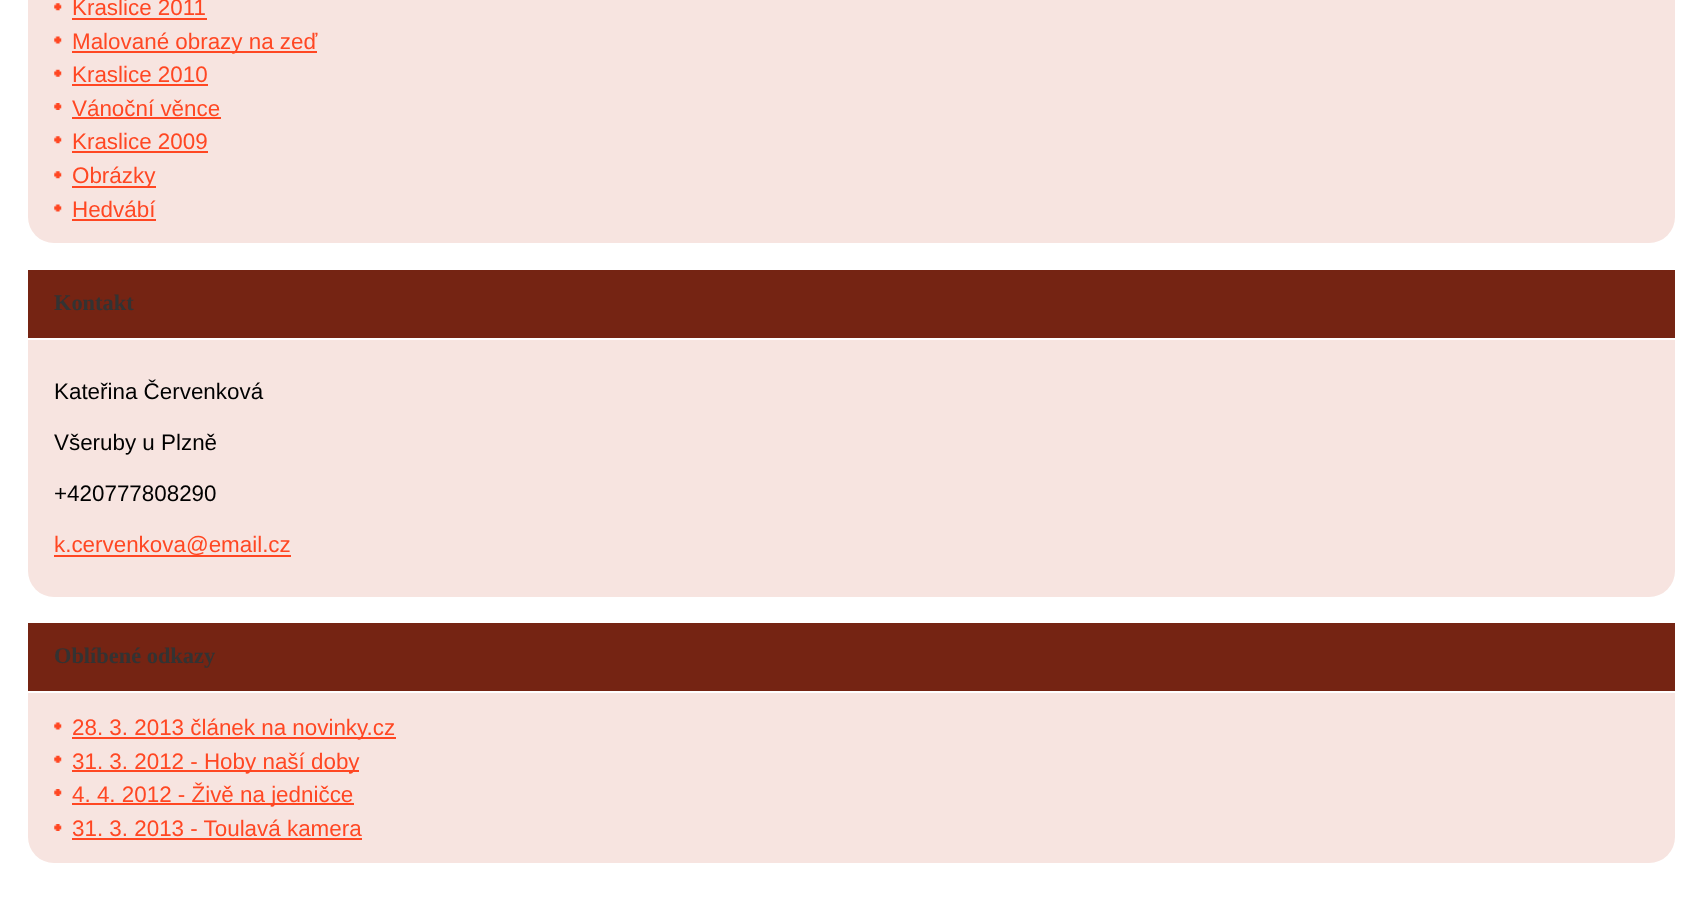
<svg xmlns="http://www.w3.org/2000/svg" width="1693" height="900">
	<rect width="100%" height="100%" fill="#FFFFFF" />
	<rect x="28" y="-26" width="1647" height="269" rx="26" fill="#F7E4E0" />
	<image x="54" y="3" width="8" height="8" href="assets/img1.png" />
	<text x="72" y="15" font-family="Liberation Sans" font-size="22.4" fill="#FF4723">Kraslice 2011</text>
	<rect x="72" y="18" width="135" height="2" fill="#FF4723" />
	<image x="54" y="36" width="8" height="8" href="assets/img2.png" />
	<rect x="72" y="51" width="245" height="2" fill="#FF4723" />
	<text x="72" y="49" font-family="Liberation Sans" font-size="22.4" fill="#FF4723">Malované obrazy na zeď</text>
	<image x="54" y="69" width="8" height="8" href="assets/img3.png" />
	<text x="72" y="82" font-family="Liberation Sans" font-size="22.4" fill="#FF4723">Kraslice 2010</text>
	<rect x="72" y="84" width="136" height="2" fill="#FF4723" />
	<image x="54" y="103" width="8" height="7" href="assets/img4.png" />
	<text x="72" y="116" font-family="Liberation Sans" font-size="22.4" fill="#FF4723">Vánoční věnce</text>
	<rect x="72" y="117" width="149" height="2" fill="#FF4723" />
	<image x="54" y="136" width="8" height="8" href="assets/img1.png" />
	<text x="72" y="149" font-family="Liberation Sans" font-size="22.4" fill="#FF4723">Kraslice 2009</text>
	<rect x="72" y="151" width="136" height="2" fill="#FF4723" />
	<image x="54" y="171" width="8" height="8" href="assets/img1.png" />
	<rect x="72" y="186" width="84" height="2" fill="#FF4723" />
	<text x="72" y="183" font-family="Liberation Sans" font-size="22.4" fill="#FF4723">Obrázky</text>
	<image x="54" y="204" width="8" height="8" href="assets/img2.png" />
	<text x="72" y="217" font-family="Liberation Sans" font-size="22.4" fill="#FF4723">Hedvábí</text>
	<rect x="72" y="219" width="84" height="2" fill="#FF4723" />
	<rect x="28" y="270" width="1647" height="327" rx="26" fill="#F7E4E0" />
	<rect x="28" y="270" width="1647" height="68" fill="#752413" />
	<rect x="28" y="338" width="1647" height="2" fill="#FFFFFF" />
	<text x="54" y="310" font-family="Liberation Serif" font-size="22.4" font-weight="700" fill="#333333">Kontakt</text>
	<g font-family="Liberation Sans" font-size="22.4" fill="#000000">
		<text x="54" y="399">Kateřina Červenková</text>
		<text x="54" y="450">Všeruby u Plzně</text>
		<text x="54" y="501">+420777808290</text>
	</g>
	<rect x="54" y="555" width="237" height="2" fill="#FF4723" />
	<text x="54" y="552" font-family="Liberation Sans" font-size="22.4" fill="#FF4723">k.cervenkova@email.cz</text>
	<rect x="28" y="623" width="1647" height="240" rx="26" fill="#F7E4E0" />
	<rect x="28" y="623" width="1647" height="68" fill="#752413" />
	<rect x="28" y="691" width="1647" height="2" fill="#FFFFFF" />
	<text x="54" y="663" font-family="Liberation Serif" font-size="22.4" font-weight="700" fill="#333333">Oblíbené odkazy</text>
	<image x="54" y="722" width="8" height="8" href="assets/img2.png" />
	<rect x="72" y="737" width="324" height="2" fill="#FF4723" />
	<text x="72" y="735" font-family="Liberation Sans" font-size="22.4" fill="#FF4723">28. 3. 2013 článek na novinky.cz</text>
	<image x="54" y="755" width="8" height="8" href="assets/img3.png" />
	<rect x="72" y="770" width="287" height="2" fill="#FF4723" />
	<text x="72" y="769" font-family="Liberation Sans" font-size="22.4" fill="#FF4723">31. 3. 2012 - Hoby naší doby</text>
	<image x="54" y="789" width="8" height="7" href="assets/img4.png" />
	<rect x="72" y="803" width="282" height="2" fill="#FF4723" />
	<text x="72" y="802" font-family="Liberation Sans" font-size="22.4" fill="#FF4723">4. 4. 2012 - Živě na jedničce</text>
	<image x="54" y="824" width="8" height="7" href="assets/img4.png" />
	<text x="72" y="836" font-family="Liberation Sans" font-size="22.4" fill="#FF4723">31. 3. 2013 - Toulavá kamera</text>
	<rect x="72" y="838" width="290" height="2" fill="#FF4723" />
</svg>
